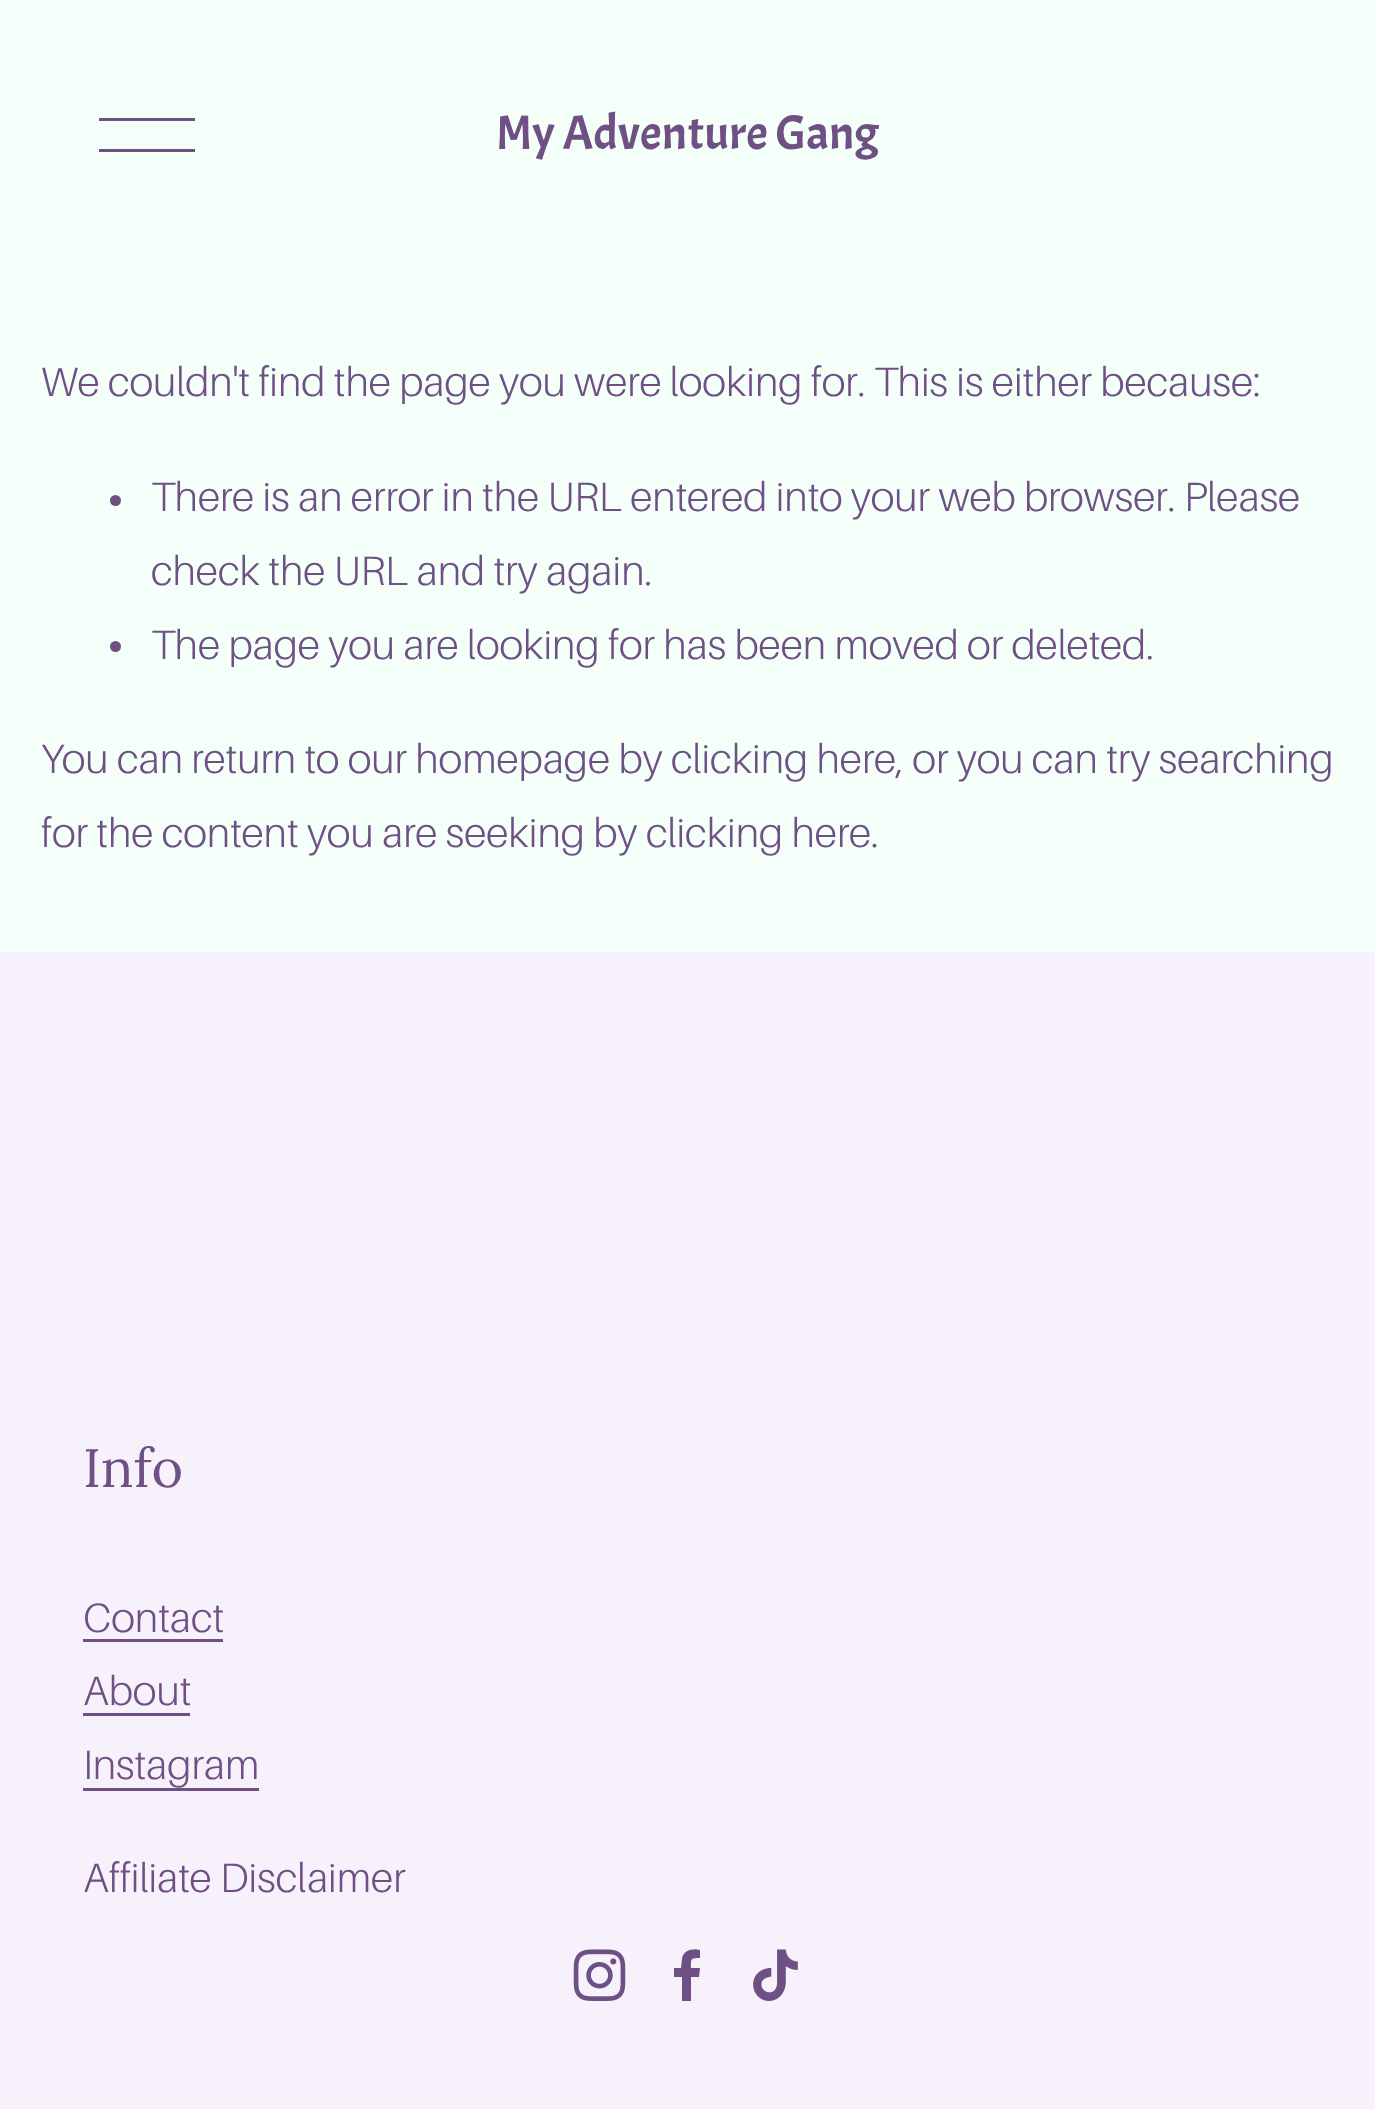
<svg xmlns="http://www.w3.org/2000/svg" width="1375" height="2109">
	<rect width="100%" height="100%" fill="#F5FFF9" />
	<rect x="99" y="118" width="96" height="3" fill="#6E5084" />
	<rect x="99" y="149" width="96" height="3" fill="#6E5084" />
	<text x="496" y="149" font-family="Acme" font-size="48.5" fill="#6E5084">My Adventure Gang</text>
	<text x="41" y="396" font-family="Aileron" font-size="41" font-weight="300" fill="#6E5084">We couldn't find the page you were looking for. This is either because:</text>
	<circle cx="115.5" cy="500.5" r="5.5" fill="#6E5084" />
	<g font-family="Aileron" font-size="41" font-weight="300" fill="#6E5084">
		<text x="151" y="511">There is an error in the URL entered into your web browser. Please</text>
		<text x="151" y="585">check the URL and try again.</text>
	</g>
	<circle cx="115.5" cy="646.5" r="5.5" fill="#6E5084" />
	<g font-family="Aileron" font-size="41" font-weight="300" fill="#6E5084">
		<text x="151" y="659">The page you are looking for has been moved or deleted.</text>
		<text x="41" y="773">You can return to our homepage by</text>
		<text x="671" y="773">clicking here, or you can try searching</text>
		<text x="41" y="847">for the content you are seeking by</text>
		<text x="646" y="847">clicking here.</text>
	</g>
	<rect x="0" y="952" width="1375" height="1157" fill="#F7F1FC" />
	<text x="83" y="1487" font-family="Lora" font-size="54" fill="#6E5084">Info</text>
	<text x="83" y="1632" font-family="Aileron" font-size="41" font-weight="300" fill="#6E5084">Contact</text>
	<rect x="83" y="1639" width="140" height="3" fill="#6E5084" />
	<text x="83" y="1705" font-family="Aileron" font-size="41" font-weight="300" fill="#6E5084">About</text>
	<rect x="83" y="1713" width="107" height="3" fill="#6E5084" />
	<text x="83" y="1779" font-family="Aileron" font-size="41" font-weight="300" fill="#6E5084">Instagram</text>
	<rect x="83" y="1788" width="176" height="3" fill="#6E5084" />
	<text x="83" y="1892" font-family="Aileron" font-size="41" font-weight="300" fill="#6E5084">Affiliate Disclaimer</text>
	<image x="573" y="1949" width="53" height="52" href="assets/img1.png" />
	<path d="M691 2001V1977H699L700 1968H691C691 1959 690 1958 700 1958V1950C693 1948 683 1950 682 1959L681 1968H674V1977H682V2001Z" fill="#6E5084" />
	<image x="753" y="1949" width="45" height="52" href="assets/img2.png" />
</svg>
